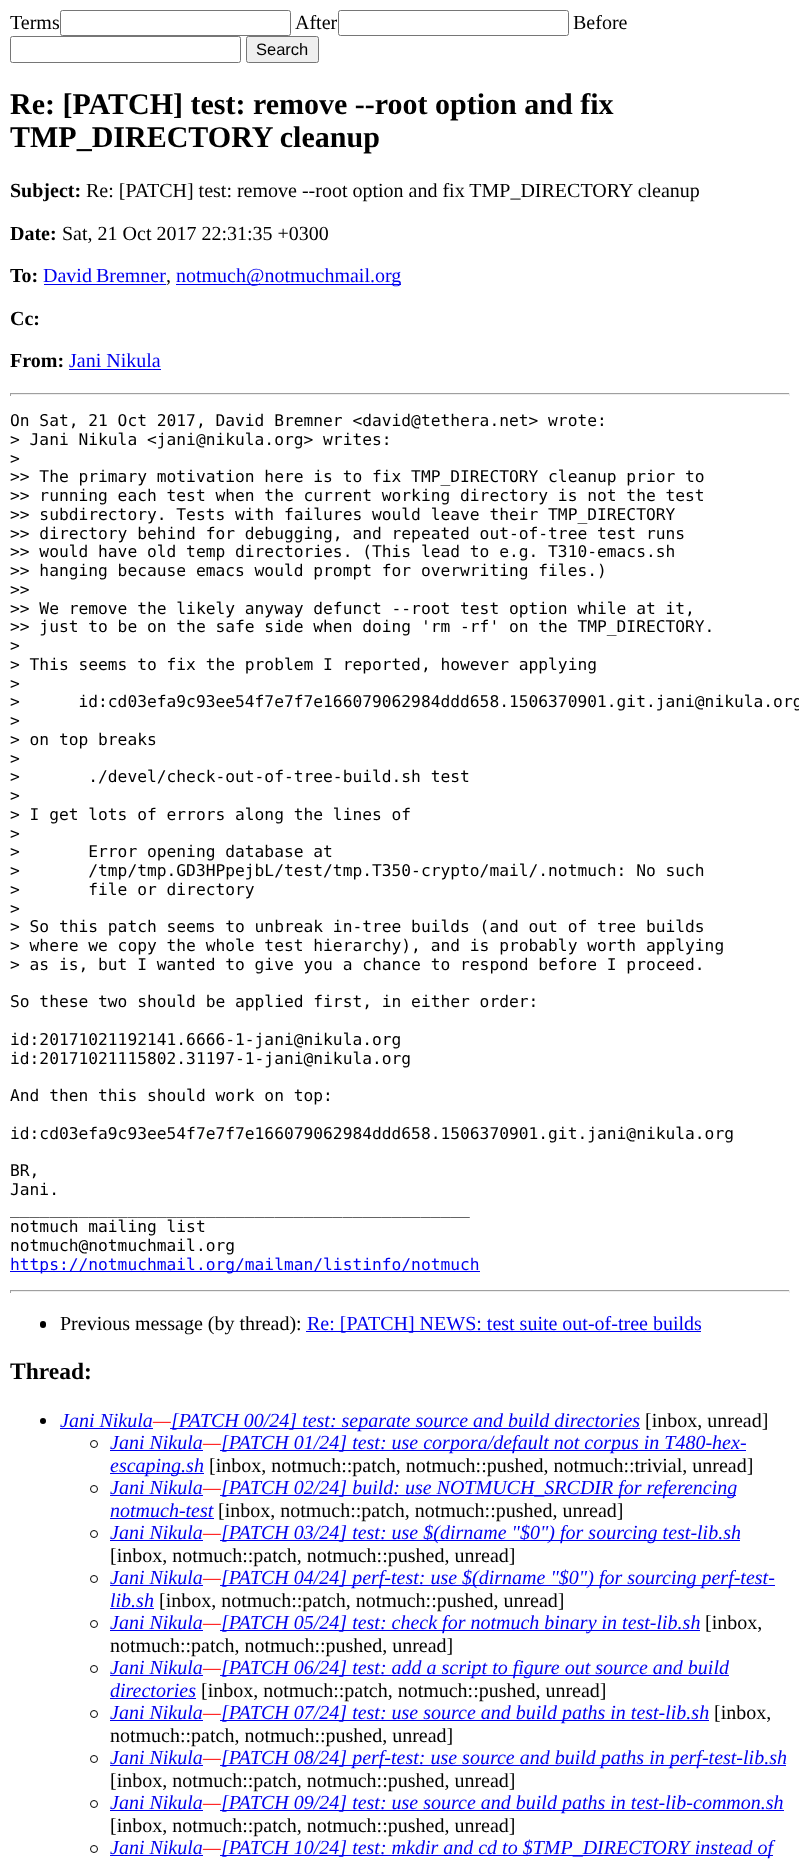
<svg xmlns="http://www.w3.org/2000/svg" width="799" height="1868">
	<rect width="100%" height="100%" fill="#FFFFFF" />
	<text x="10" y="29" font-family="Liberation Serif" font-size="20" fill="#000000">Terms</text>
	<rect x="60.5" y="10.5" width="230" height="25" rx="2" fill="none" stroke="#767676" />
	<text x="295" y="29" font-family="Liberation Serif" font-size="20" fill="#000000">After</text>
	<rect x="338.5" y="10.5" width="230" height="25" rx="2" fill="none" stroke="#767676" />
	<text x="573" y="29" font-family="Liberation Serif" font-size="20" fill="#000000">Before</text>
	<rect x="10.5" y="36.5" width="230" height="26" rx="2" fill="none" stroke="#767676" />
	<rect x="246.5" y="36.5" width="72" height="26" rx="2" fill="#EFEFEF" stroke="#767676" />
	<text x="256" y="55" font-family="Liberation Sans" font-size="16.5" fill="#000000">Search</text>
	<g font-family="Liberation Serif" font-size="30" font-weight="700" fill="#000000">
		<text x="10" y="114">Re: [PATCH] test: remove --root option and fix</text>
		<text x="10" y="147">TMP_DIRECTORY cleanup</text>
	</g>
	<text x="10" y="197" font-family="Liberation Serif" font-size="20" font-weight="700" fill="#000000">Subject:</text>
	<text x="86" y="197" font-family="Liberation Serif" font-size="20" fill="#000000">Re: [PATCH] test: remove --root option and fix TMP_DIRECTORY cleanup</text>
	<text x="10" y="240" font-family="Liberation Serif" font-size="20" font-weight="700" fill="#000000">Date:</text>
	<text x="62" y="240" font-family="Liberation Serif" font-size="20" fill="#000000">Sat, 21 Oct 2017 22:31:35 +0300</text>
	<text x="10" y="282" font-family="Liberation Serif" font-size="20" font-weight="700" fill="#000000">To:</text>
	<text x="43" y="282" word-spacing="-1" font-family="Liberation Serif" font-size="20" fill="#0000EE">David Bremner</text>
	<rect x="44" y="284" width="122" height="1" fill="#0000EE" />
	<text x="166" y="282" font-family="Liberation Serif" font-size="20" fill="#000000">,</text>
	<rect x="176" y="284" width="225" height="1" fill="#0000EE" />
	<text x="176" y="282" font-family="Liberation Serif" font-size="20" fill="#0000EE">notmuch@notmuchmail.org</text>
	<g font-family="Liberation Serif" font-size="20" font-weight="700" fill="#000000">
		<text x="10" y="325">Cc:</text>
		<text x="10" y="367">From:</text>
	</g>
	<text x="69" y="367" font-family="Liberation Serif" font-size="20" fill="#0000EE">Jani Nikula</text>
	<rect x="69" y="369" width="92" height="1" fill="#0000EE" />
	<rect x="10" y="393" width="780" height="1" fill="#9F9F9F" />
	<rect x="789" y="393" width="1" height="3" fill="#EEEEEE" />
	<rect x="10" y="394" width="780" height="1" fill="#EEEEEE" />
	<rect x="10" y="393" width="1" height="3" fill="#9F9F9F" />
	<g font-family="DejaVu Sans Mono" font-size="16.25" fill="#000000">
		<text x="10" y="426">On Sat, 21 Oct 2017, David Bremner &lt;david@tethera.net&gt; wrote:</text>
		<text x="10" y="445">&gt; Jani Nikula &lt;jani@nikula.org&gt; writes:</text>
		<text x="10" y="464">&gt;</text>
		<text x="10" y="482">&gt;&gt; The primary motivation here is to fix TMP_DIRECTORY cleanup prior to</text>
		<text x="10" y="501">&gt;&gt; running each test when the current working directory is not the test</text>
		<text x="10" y="520">&gt;&gt; subdirectory. Tests with failures would leave their TMP_DIRECTORY</text>
		<text x="10" y="539">&gt;&gt; directory behind for debugging, and repeated out-of-tree test runs</text>
		<text x="10" y="557">&gt;&gt; would have old temp directories. (This lead to e.g. T310-emacs.sh</text>
		<text x="10" y="576">&gt;&gt; hanging because emacs would prompt for overwriting files.)</text>
		<text x="10" y="595">&gt;&gt;</text>
		<text x="10" y="614">&gt;&gt; We remove the likely anyway defunct --root test option while at it,</text>
		<text x="10" y="632">&gt;&gt; just to be on the safe side when doing 'rm -rf' on the TMP_DIRECTORY.</text>
		<text x="10" y="651">&gt;</text>
		<text x="10" y="670">&gt; This seems to fix the problem I reported, however applying</text>
		<text x="10" y="689">&gt;</text>
		<text x="10" y="707" xml:space="preserve">&gt;      id:cd03efa9c93ee54f7e7f7e166079062984ddd658.1506370901.git.jani@nikula.org</text>
		<text x="10" y="726">&gt;</text>
		<text x="10" y="745">&gt; on top breaks</text>
		<text x="10" y="764">&gt;</text>
		<text x="10" y="782" xml:space="preserve">&gt;       ./devel/check-out-of-tree-build.sh test</text>
		<text x="10" y="801">&gt;</text>
		<text x="10" y="820">&gt; I get lots of errors along the lines of</text>
		<text x="10" y="839">&gt;</text>
		<text x="10" y="857" xml:space="preserve">&gt;       Error opening database at</text>
		<text x="10" y="876" xml:space="preserve">&gt;       /tmp/tmp.GD3HPpejbL/test/tmp.T350-crypto/mail/.notmuch: No such</text>
		<text x="10" y="895" xml:space="preserve">&gt;       file or directory</text>
		<text x="10" y="914">&gt;</text>
		<text x="10" y="932">&gt; So this patch seems to unbreak in-tree builds (and out of tree builds</text>
		<text x="10" y="951">&gt; where we copy the whole test hierarchy), and is probably worth applying</text>
		<text x="10" y="970">&gt; as is, but I wanted to give you a chance to respond before I proceed.</text>
		<text x="10" y="1007">So these two should be applied first, in either order:</text>
		<text x="10" y="1045">id:20171021192141.6666-1-jani@nikula.org</text>
		<text x="10" y="1064">id:20171021115802.31197-1-jani@nikula.org</text>
		<text x="10" y="1101">And then this should work on top:</text>
		<text x="10" y="1139">id:cd03efa9c93ee54f7e7f7e166079062984ddd658.1506370901.git.jani@nikula.org</text>
		<text x="10" y="1176">BR,</text>
		<text x="10" y="1195">Jani.</text>
		<text x="10" y="1214">_______________________________________________</text>
		<text x="10" y="1232">notmuch mailing list</text>
		<text x="10" y="1251">notmuch@notmuchmail.org</text>
	</g>
	<rect x="10" y="1271" width="470" height="1" fill="#0000EE" />
	<text x="10" y="1270" font-family="DejaVu Sans Mono" font-size="16.25" fill="#0000EE">https://notmuchmail.org/mailman/listinfo/notmuch</text>
	<rect x="10" y="1290" width="780" height="1" fill="#9F9F9F" />
	<rect x="789" y="1290" width="1" height="3" fill="#EEEEEE" />
	<rect x="10" y="1291" width="780" height="1" fill="#EEEEEE" />
	<rect x="10" y="1290" width="1" height="3" fill="#9F9F9F" />
	<rect x="40" y="1321" width="6" height="7" rx="3" fill="#000000" />
	<text x="60" y="1330" font-family="Liberation Serif" font-size="20" fill="#000000">Previous message (by thread):</text>
	<rect x="306" y="1331" width="395" height="1" fill="#0000EE" />
	<text x="307" y="1330" font-family="Liberation Serif" font-size="20" fill="#0000EE">Re: [PATCH] NEWS: test suite out-of-tree builds</text>
	<text x="10" y="1379" font-family="Liberation Serif" font-size="23.5" font-weight="700" fill="#000000">Thread:</text>
	<circle cx="43" cy="1421" r="3" fill="#000000" />
	<text x="60" y="1427" font-family="Liberation Serif" font-size="20" font-style="italic" fill="#0000EE">Jani Nikula</text>
	<text x="153" y="1427" font-family="Liberation Serif" font-size="20" font-style="italic" fill="#FF0000">—</text>
	<rect x="60" y="1428" width="93" height="1" fill="#0000EE" />
	<rect x="170" y="1428" width="470" height="1" fill="#0000EE" />
	<text x="171" y="1427" font-family="Liberation Serif" font-size="20" font-style="italic" fill="#0000EE">[PATCH 00/24] test: separate source and build directories</text>
	<text x="645" y="1427" font-family="Liberation Serif" font-size="20" fill="#000000">[inbox, unread]</text>
	<circle cx="94" cy="1444" r="3.5" fill="none" stroke="#000000" />
	<text x="110" y="1449" font-family="Liberation Serif" font-size="20" font-style="italic" fill="#0000EE">Jani Nikula</text>
	<text x="203" y="1449" font-family="Liberation Serif" font-size="20" font-style="italic" fill="#FF0000">—</text>
	<rect x="110" y="1450" width="93" height="1" fill="#0000EE" />
	<rect x="220" y="1450" width="526" height="1" fill="#0000EE" />
	<text x="221" y="1449" font-family="Liberation Serif" font-size="20" font-style="italic" fill="#0000EE">[PATCH 01/24] test: use corpora/default not corpus in T480-hex-</text>
	<rect x="110" y="1473" width="94" height="1" fill="#0000EE" />
	<text x="110" y="1472" font-family="Liberation Serif" font-size="20" font-style="italic" fill="#0000EE">escaping.sh</text>
	<text x="209" y="1472" font-family="Liberation Serif" font-size="20" fill="#000000">[inbox, notmuch::patch, notmuch::pushed, notmuch::trivial, unread]</text>
	<circle cx="94" cy="1489" r="3.5" fill="none" stroke="#000000" />
	<text x="110" y="1494" font-family="Liberation Serif" font-size="20" font-style="italic" fill="#0000EE">Jani Nikula</text>
	<text x="203" y="1494" font-family="Liberation Serif" font-size="20" font-style="italic" fill="#FF0000">—</text>
	<rect x="110" y="1495" width="93" height="1" fill="#0000EE" />
	<rect x="220" y="1495" width="516" height="1" fill="#0000EE" />
	<g font-family="Liberation Serif" font-size="20" font-style="italic" fill="#0000EE">
		<text x="221" y="1494">[PATCH 02/24] build: use NOTMUCH_SRCDIR for referencing</text>
		<text x="110" y="1517">notmuch-test</text>
	</g>
	<rect x="110" y="1518" width="104" height="1" fill="#0000EE" />
	<text x="218" y="1517" font-family="Liberation Serif" font-size="20" fill="#000000">[inbox, notmuch::patch, notmuch::pushed, unread]</text>
	<circle cx="94" cy="1534" r="3.5" fill="none" stroke="#000000" />
	<text x="110" y="1539" font-family="Liberation Serif" font-size="20" font-style="italic" fill="#0000EE">Jani Nikula</text>
	<text x="203" y="1539" font-family="Liberation Serif" font-size="20" font-style="italic" fill="#FF0000">—</text>
	<rect x="110" y="1540" width="93" height="1" fill="#0000EE" />
	<rect x="220" y="1540" width="520" height="1" fill="#0000EE" />
	<text x="221" y="1539" font-family="Liberation Serif" font-size="20" font-style="italic" fill="#0000EE">[PATCH 03/24] test: use $(dirname "$0") for sourcing test-lib.sh</text>
	<text x="110" y="1562" font-family="Liberation Serif" font-size="20" fill="#000000">[inbox, notmuch::patch, notmuch::pushed, unread]</text>
	<circle cx="94" cy="1579" r="3.5" fill="none" stroke="#000000" />
	<text x="110" y="1584" font-family="Liberation Serif" font-size="20" font-style="italic" fill="#0000EE">Jani Nikula</text>
	<text x="203" y="1584" font-family="Liberation Serif" font-size="20" font-style="italic" fill="#FF0000">—</text>
	<rect x="110" y="1585" width="93" height="1" fill="#0000EE" />
	<rect x="220" y="1585" width="555" height="1" fill="#0000EE" />
	<g font-family="Liberation Serif" font-size="20" font-style="italic" fill="#0000EE">
		<text x="221" y="1584">[PATCH 04/24] perf-test: use $(dirname "$0") for sourcing perf-test-</text>
		<text x="110" y="1607">lib.sh</text>
	</g>
	<rect x="110" y="1608" width="44" height="1" fill="#0000EE" />
	<text x="159" y="1607" font-family="Liberation Serif" font-size="20" fill="#000000">[inbox, notmuch::patch, notmuch::pushed, unread]</text>
	<circle cx="94" cy="1624" r="3.5" fill="none" stroke="#000000" />
	<text x="110" y="1629" font-family="Liberation Serif" font-size="20" font-style="italic" fill="#0000EE">Jani Nikula</text>
	<text x="203" y="1629" font-family="Liberation Serif" font-size="20" font-style="italic" fill="#FF0000">—</text>
	<rect x="110" y="1630" width="93" height="1" fill="#0000EE" />
	<rect x="220" y="1630" width="480" height="1" fill="#0000EE" />
	<text x="221" y="1629" font-family="Liberation Serif" font-size="20" font-style="italic" fill="#0000EE">[PATCH 05/24] test: check for notmuch binary in test-lib.sh</text>
	<g font-family="Liberation Serif" font-size="20" fill="#000000">
		<text x="705" y="1629">[inbox,</text>
		<text x="110" y="1652">notmuch::patch, notmuch::pushed, unread]</text>
	</g>
	<circle cx="94" cy="1669" r="3.5" fill="none" stroke="#000000" />
	<text x="110" y="1674" font-family="Liberation Serif" font-size="20" font-style="italic" fill="#0000EE">Jani Nikula</text>
	<text x="203" y="1674" font-family="Liberation Serif" font-size="20" font-style="italic" fill="#FF0000">—</text>
	<rect x="110" y="1675" width="93" height="1" fill="#0000EE" />
	<rect x="220" y="1675" width="509" height="1" fill="#0000EE" />
	<g font-family="Liberation Serif" font-size="20" font-style="italic" fill="#0000EE">
		<text x="221" y="1674">[PATCH 06/24] test: add a script to figure out source and build</text>
		<text x="110" y="1697">directories</text>
	</g>
	<rect x="110" y="1698" width="86" height="1" fill="#0000EE" />
	<text x="201" y="1697" font-family="Liberation Serif" font-size="20" fill="#000000">[inbox, notmuch::patch, notmuch::pushed, unread]</text>
	<circle cx="94" cy="1714" r="3.5" fill="none" stroke="#000000" />
	<text x="110" y="1719" font-family="Liberation Serif" font-size="20" font-style="italic" fill="#0000EE">Jani Nikula</text>
	<text x="203" y="1719" font-family="Liberation Serif" font-size="20" font-style="italic" fill="#FF0000">—</text>
	<rect x="110" y="1720" width="93" height="1" fill="#0000EE" />
	<rect x="220" y="1720" width="489" height="1" fill="#0000EE" />
	<text x="221" y="1719" font-family="Liberation Serif" font-size="20" font-style="italic" fill="#0000EE">[PATCH 07/24] test: use source and build paths in test-lib.sh</text>
	<g font-family="Liberation Serif" font-size="20" fill="#000000">
		<text x="714" y="1719">[inbox,</text>
		<text x="110" y="1742">notmuch::patch, notmuch::pushed, unread]</text>
	</g>
	<circle cx="94" cy="1759" r="3.5" fill="none" stroke="#000000" />
	<text x="110" y="1764" font-family="Liberation Serif" font-size="20" font-style="italic" fill="#0000EE">Jani Nikula</text>
	<text x="203" y="1764" font-family="Liberation Serif" font-size="20" font-style="italic" fill="#FF0000">—</text>
	<rect x="110" y="1765" width="93" height="1" fill="#0000EE" />
	<rect x="220" y="1765" width="566" height="1" fill="#0000EE" />
	<text x="221" y="1764" font-family="Liberation Serif" font-size="20" font-style="italic" fill="#0000EE">[PATCH 08/24] perf-test: use source and build paths in perf-test-lib.sh</text>
	<text x="110" y="1787" font-family="Liberation Serif" font-size="20" fill="#000000">[inbox, notmuch::patch, notmuch::pushed, unread]</text>
	<circle cx="94" cy="1804" r="3.5" fill="none" stroke="#000000" />
	<text x="110" y="1809" font-family="Liberation Serif" font-size="20" font-style="italic" fill="#0000EE">Jani Nikula</text>
	<text x="203" y="1809" font-family="Liberation Serif" font-size="20" font-style="italic" fill="#FF0000">—</text>
	<rect x="110" y="1810" width="93" height="1" fill="#0000EE" />
	<rect x="220" y="1810" width="564" height="1" fill="#0000EE" />
	<text x="221" y="1809" font-family="Liberation Serif" font-size="20" font-style="italic" fill="#0000EE">[PATCH 09/24] test: use source and build paths in test-lib-common.sh</text>
	<text x="110" y="1832" font-family="Liberation Serif" font-size="20" fill="#000000">[inbox, notmuch::patch, notmuch::pushed, unread]</text>
	<circle cx="94" cy="1849" r="3.5" fill="none" stroke="#000000" />
	<text x="110" y="1854" font-family="Liberation Serif" font-size="20" font-style="italic" fill="#0000EE">Jani Nikula</text>
	<text x="203" y="1854" font-family="Liberation Serif" font-size="20" font-style="italic" fill="#FF0000">—</text>
	<rect x="110" y="1855" width="93" height="1" fill="#0000EE" />
	<rect x="220" y="1855" width="553" height="1" fill="#0000EE" />
	<text x="221" y="1854" font-family="Liberation Serif" font-size="20" font-style="italic" fill="#0000EE">[PATCH 10/24] test: mkdir and cd to $TMP_DIRECTORY instead of</text>
</svg>
